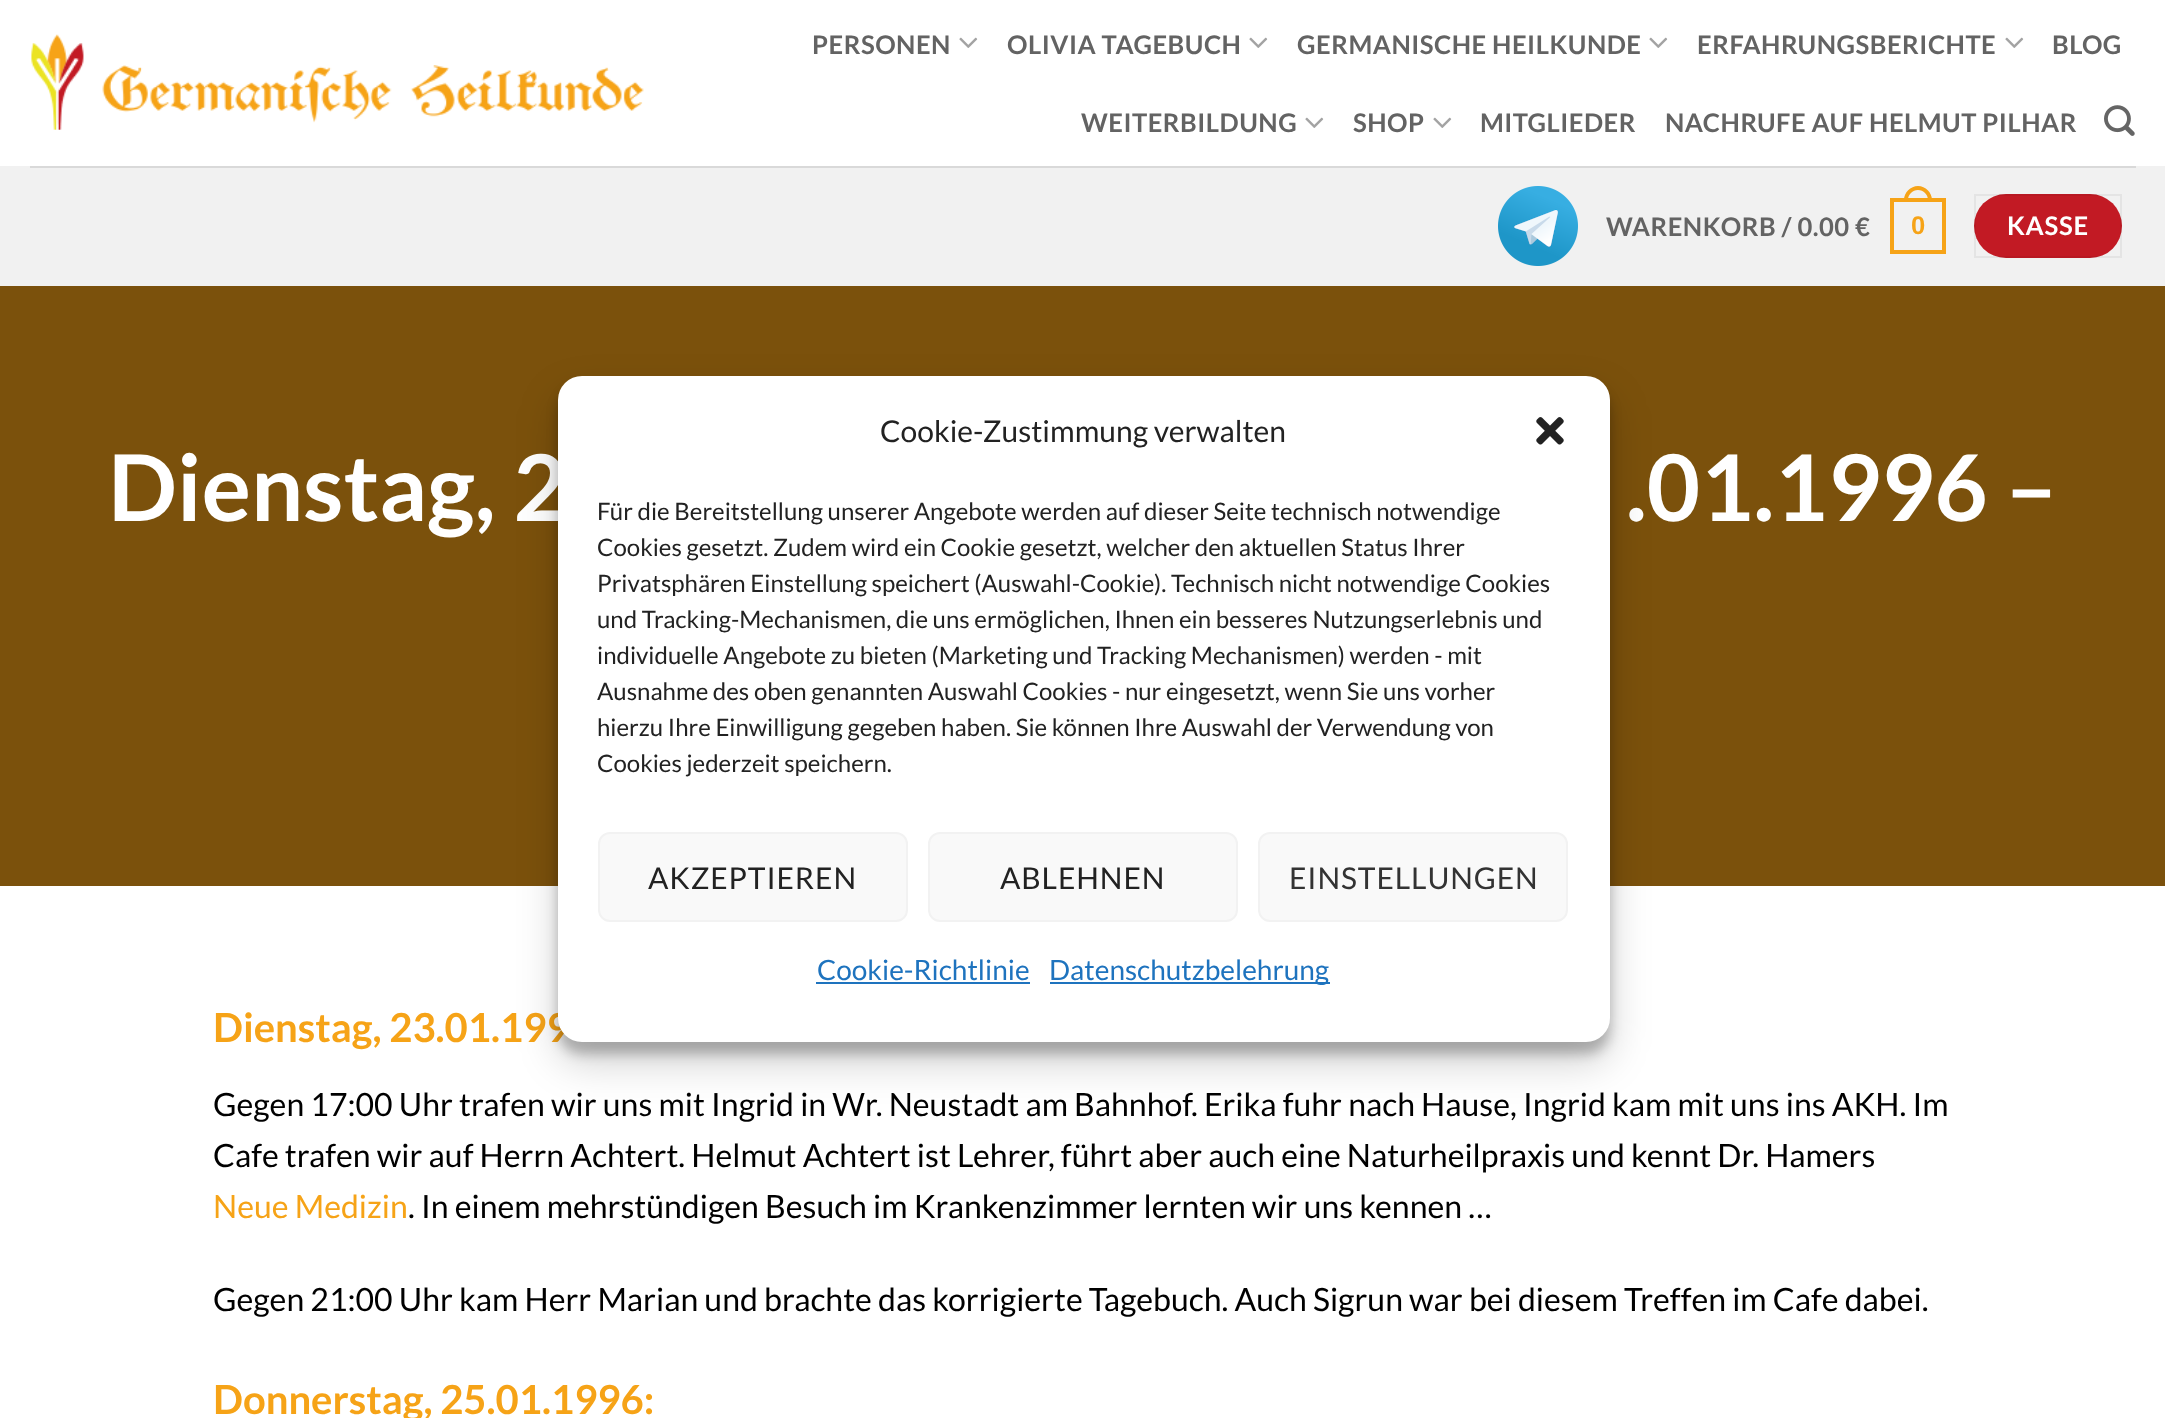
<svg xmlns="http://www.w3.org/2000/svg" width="2165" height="1418">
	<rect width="100%" height="100%" fill="#FFFFFF" />
	<image x="31" y="34" width="613" height="96" href="assets/img1.png" />
	<text x="812" y="54" font-family="Lato" font-size="25.6" font-weight="700" letter-spacing="0.5" fill="#636363">PERSONEN</text>
	<image x="959" y="37" width="19" height="11" href="assets/img2.png" />
	<text x="1007" y="54" font-family="Lato" font-size="25.6" font-weight="700" letter-spacing="0.5" fill="#636363">OLIVIA TAGEBUCH</text>
	<image x="1249" y="37" width="19" height="11" href="assets/img2.png" />
	<text x="1297" y="54" font-family="Lato" font-size="25.6" font-weight="700" letter-spacing="0.5" fill="#636363">GERMANISCHE HEILKUNDE</text>
	<image x="1649" y="37" width="19" height="11" href="assets/img2.png" />
	<text x="1697" y="54" font-family="Lato" font-size="25.6" font-weight="700" letter-spacing="0.5" fill="#636363">ERFAHRUNGSBERICHTE</text>
	<image x="2005" y="37" width="19" height="11" href="assets/img2.png" />
	<g font-family="Lato" font-size="25.6" font-weight="700" letter-spacing="0.5" fill="#636363">
		<text x="2052" y="54">BLOG</text>
		<text x="1081" y="132">WEITERBILDUNG</text>
	</g>
	<image x="1305" y="117" width="19" height="11" href="assets/img2.png" />
	<text x="1353" y="132" font-family="Lato" font-size="25.6" font-weight="700" letter-spacing="0.5" fill="#636363">SHOP</text>
	<image x="1433" y="117" width="19" height="11" href="assets/img2.png" />
	<g font-family="Lato" font-size="25.6" font-weight="700" letter-spacing="0.5" fill="#636363">
		<text x="1480" y="132">MITGLIEDER</text>
		<text x="1665" y="132">NACHRUFE AUF HELMUT PILHAR</text>
	</g>
	<image x="2104" y="105" width="31" height="31" href="assets/img3.png" />
	<rect x="0" y="166" width="2165" height="120" fill="#F1F1F1" />
	<rect x="30" y="166" width="2106" height="2" fill="#D9D9D9" />
	<image x="1498" y="186" width="80" height="80" href="assets/img4.png" />
	<text x="1606" y="236" font-family="Lato" font-size="25.6" font-weight="700" letter-spacing="0.5" fill="#636363">WARENKORB / 0.00 €</text>
	<rect x="1892" y="200" width="52" height="52" fill="none" stroke="#F6A317" stroke-width="4" />
	<path d="M1918 186C1925.5 186 1932 192.5 1932 200V202H1904V200C1904 192.5 1910.5 186 1918 186ZM1918 190C1923.5 190 1928 194.5 1928 200V202H1908V200C1908 194.5 1912.5 190 1918 190Z" fill="#F6A317" fill-rule="evenodd" />
	<text x="1911" y="234" font-family="Liberation Sans" font-size="25.6" font-weight="700" letter-spacing="0.5" fill="#F6A317">0</text>
	<rect x="1974" y="194" width="148" height="64" rx="32" fill="#C21A24" />
	<rect x="1975" y="195" width="146" height="62" fill="none" stroke="#000000" stroke-opacity="0.05" stroke-width="2" />
	<text x="2007" y="235" font-family="Lato" font-size="25.6" font-weight="700" letter-spacing="0.75" fill="#FFFFFF">KASSE</text>
	<rect x="0" y="286" width="2165" height="600" fill="#7B510C" />
	<g font-family="Lato" font-size="92" font-weight="700" fill="#FFFFFF">
		<text x="108" y="521">Dienstag, 2</text>
		<text x="1626" y="521">.01.1996 –</text>
	</g>
	<text x="213" y="1042" font-family="Lato" font-size="40" font-weight="700" fill="#F6A317">Dienstag, 23.01.199</text>
	<g font-family="Lato" font-size="32" fill="#000000">
		<text x="213" y="1116">Gegen 17:00 Uhr trafen wir uns mit Ingrid in Wr. Neustadt am Bahnhof. Erika fuhr nach Hause, Ingrid kam mit uns ins AKH. Im</text>
		<text x="213" y="1167">Cafe trafen wir auf Herrn Achtert. Helmut Achtert ist Lehrer, führt aber auch eine Naturheilpraxis und kennt Dr. Hamers</text>
	</g>
	<text x="213" y="1218" font-family="Lato" font-size="32" fill="#F6A317">Neue Medizin</text>
	<g font-family="Lato" font-size="32" fill="#000000">
		<text x="408" y="1218">. In einem mehrstündigen Besuch im Krankenzimmer lernten wir uns kennen …</text>
		<text x="213" y="1311">Gegen 21:00 Uhr kam Herr Marian und brachte das korrigierte Tagebuch. Auch Sigrun war bei diesem Treffen im Cafe dabei.</text>
	</g>
	<text x="213" y="1414" font-family="Lato" font-size="40" font-weight="700" fill="#F6A317">Donnerstag, 25.01.1996:</text>
	<rect x="558" y="388" width="1052" height="666" rx="24" fill="#000000" fill-opacity="0.23" filter="blur(6px)" />
	<rect x="558" y="396" width="1052" height="666" rx="24" fill="#000000" fill-opacity="0.19" filter="blur(20px)" />
	<rect x="558" y="376" width="1052" height="666" rx="24" fill="#FFFFFF" />
	<text x="880" y="442" font-family="Lato" font-size="30" fill="#222222">Cookie-Zustimmung verwalten</text>
	<image x="1536" y="417" width="28" height="28" href="assets/img5.png" />
	<g font-family="Lato" font-size="24" fill="#222222">
		<text x="597" y="520">Für die Bereitstellung unserer Angebote werden auf dieser Seite technisch notwendige</text>
		<text x="597" y="556">Cookies gesetzt. Zudem wird ein Cookie gesetzt, welcher den aktuellen Status Ihrer</text>
		<text x="597" y="592">Privatsphären Einstellung speichert (Auswahl-Cookie). Technisch nicht notwendige Cookies</text>
		<text x="597" y="628">und Tracking-Mechanismen, die uns ermöglichen, Ihnen ein besseres Nutzungserlebnis und</text>
		<text x="597" y="664">individuelle Angebote zu bieten (Marketing und Tracking Mechanismen) werden - mit</text>
		<text x="597" y="700">Ausnahme des oben genannten Auswahl Cookies - nur eingesetzt, wenn Sie uns vorher</text>
		<text x="597" y="736">hierzu Ihre Einwilligung gegeben haben. Sie können Ihre Auswahl der Verwendung von</text>
		<text x="597" y="772">Cookies jederzeit speichern.</text>
	</g>
	<rect x="599" y="833" width="308" height="88" rx="11" fill="#F9F9F9" stroke="#F2F2F2" stroke-width="2" />
	<text x="648" y="889" font-family="Lato" font-size="30" letter-spacing="0.9" fill="#222222">AKZEPTIEREN</text>
	<rect x="929" y="833" width="308" height="88" rx="11" fill="#F9F9F9" stroke="#F2F2F2" stroke-width="2" />
	<text x="1000" y="889" font-family="Lato" font-size="30" letter-spacing="0.9" fill="#222222">ABLEHNEN</text>
	<rect x="1259" y="833" width="308" height="88" rx="11" fill="#F9F9F9" stroke="#F2F2F2" stroke-width="2" />
	<text x="1289" y="889" font-family="Lato" font-size="30" letter-spacing="0.9" fill="#333333">EINSTELLUNGEN</text>
	<text x="817" y="980" font-family="Lato" font-size="28" fill="#1E73BE">Cookie-Richtlinie</text>
	<rect x="816" y="982" width="214" height="2" fill="#1E73BE" />
	<rect x="1050" y="982" width="280" height="2" fill="#1E73BE" />
	<text x="1049" y="980" font-family="Lato" font-size="28" fill="#1E73BE">Datenschutzbelehrung</text>
</svg>
